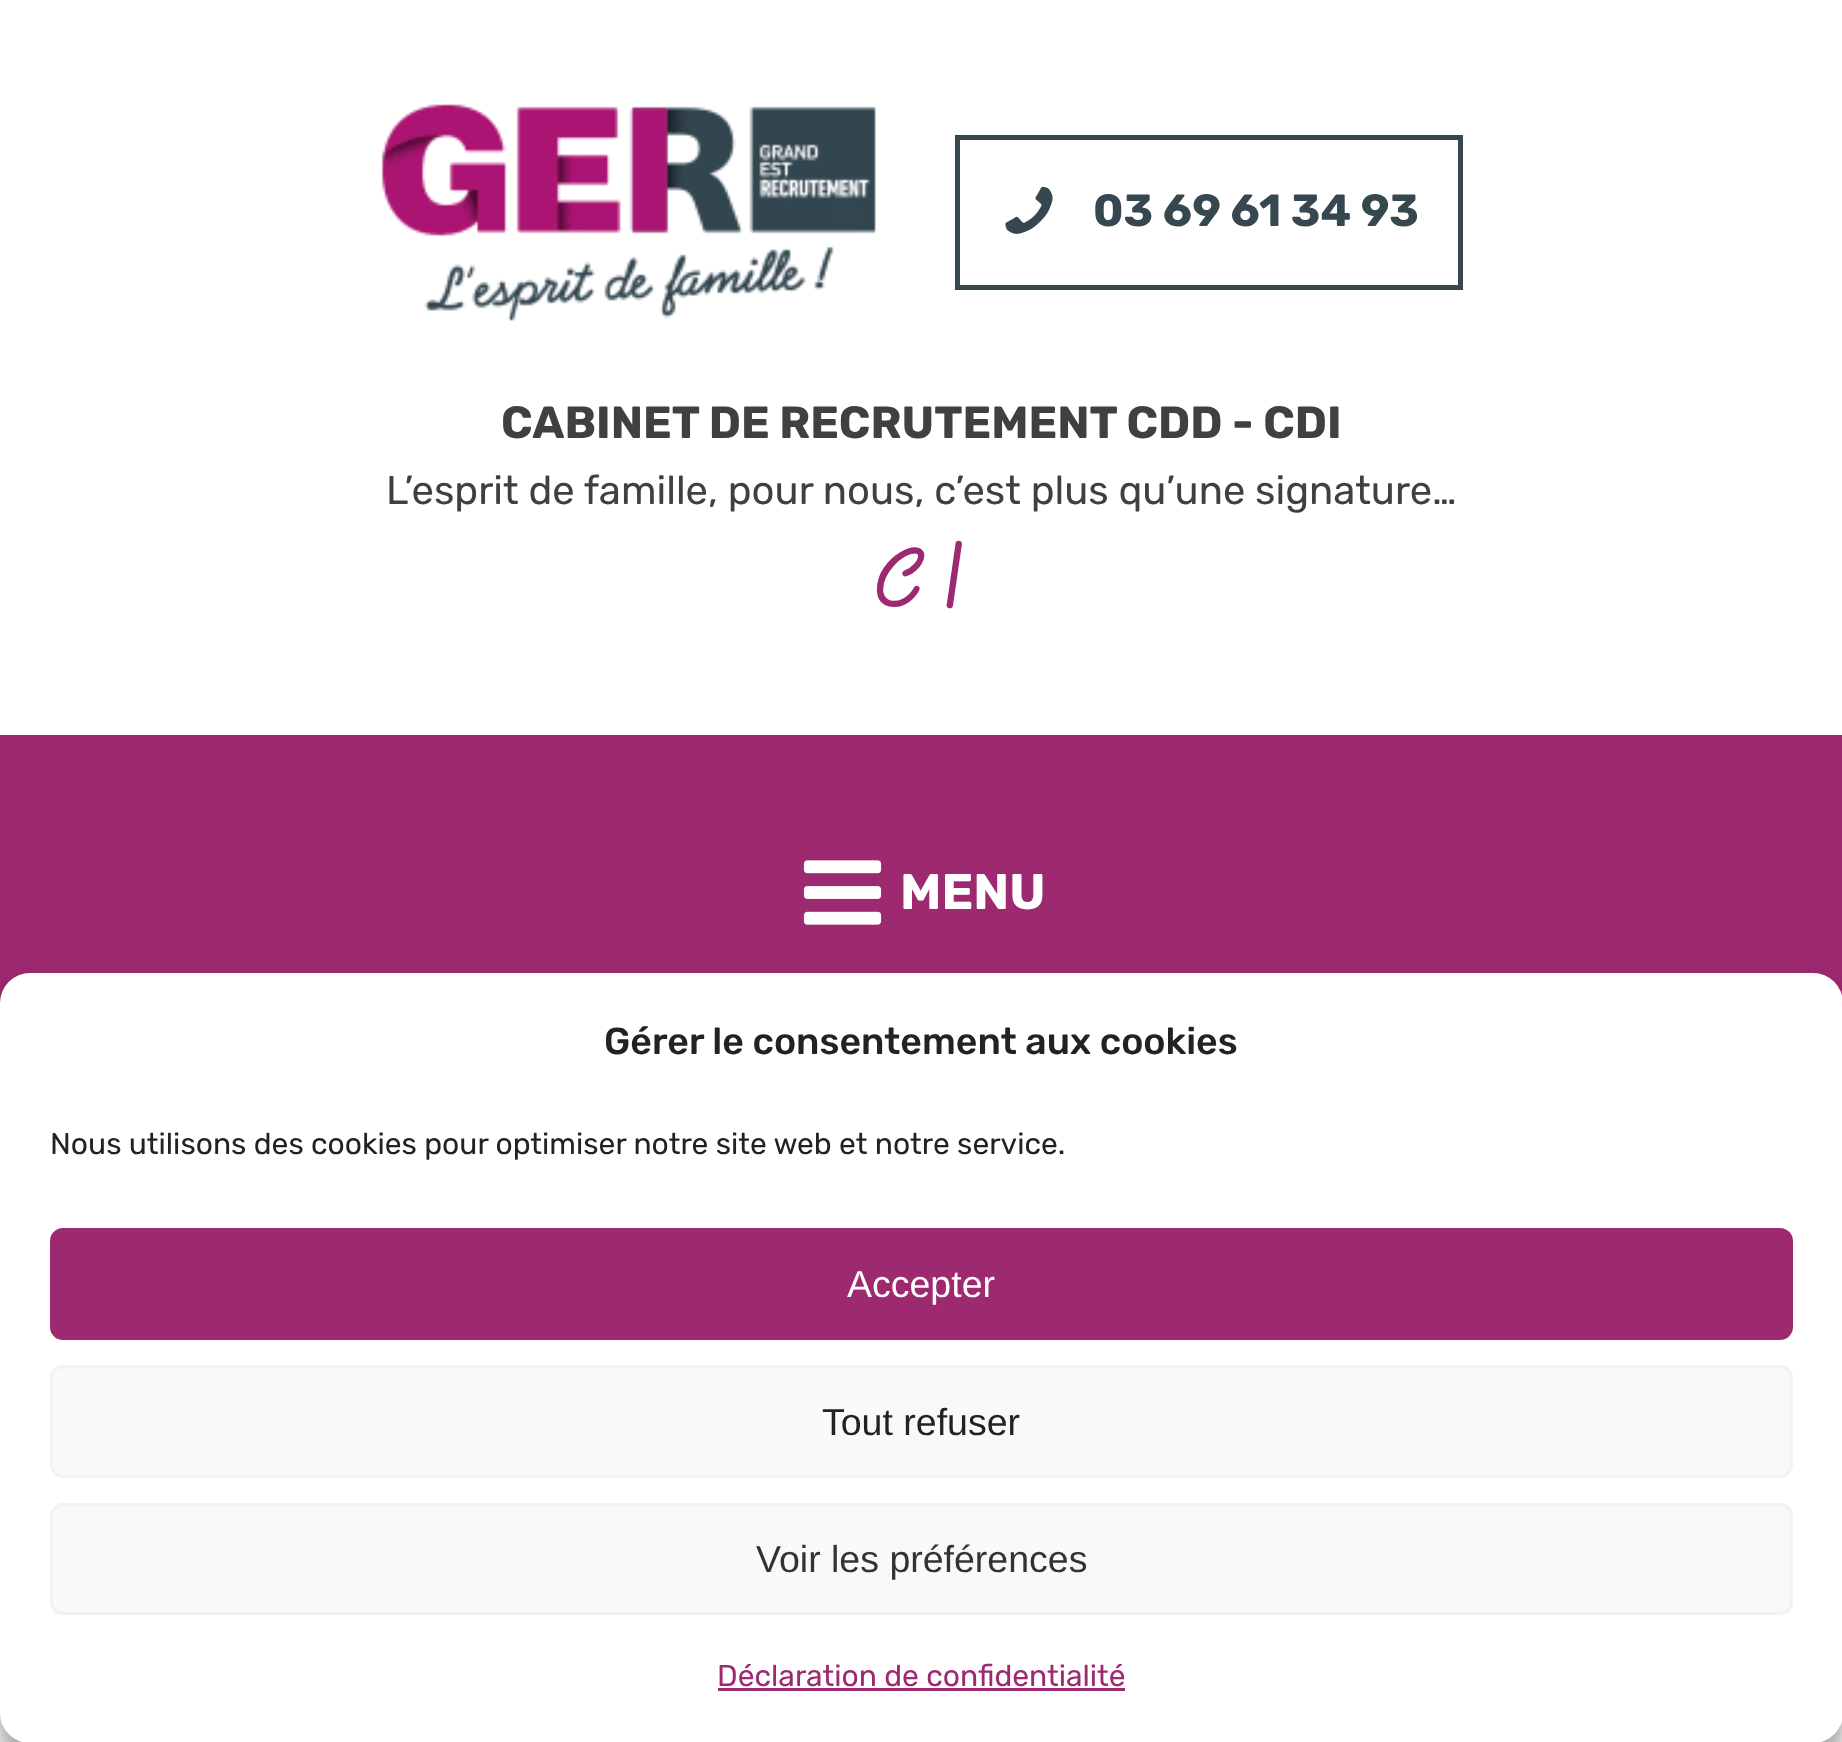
<svg xmlns="http://www.w3.org/2000/svg" width="1842" height="1742">
	<rect width="100%" height="100%" fill="#FFFFFF" />
	<image x="381" y="104" width="495" height="217" href="assets/img1.png" />
	<rect x="957.5" y="137.5" width="503" height="150" fill="none" stroke="#37474F" stroke-width="5" />
	<image x="1005" y="186" width="48" height="48" href="assets/img2.png" />
	<text x="1093" y="226" font-family="Rubik" font-size="45" font-weight="700" fill="#37474F">03 69 61 34 93</text>
	<text x="501" y="438" font-family="Rubik" font-size="45" font-weight="700" fill="#404040">CABINET DE RECRUTEMENT CDD - CDI</text>
	<text x="386" y="504" font-family="Rubik" font-size="40" fill="#404040">L’esprit de famille, pour nous, c’est plus qu’une signature…</text>
	<g font-family="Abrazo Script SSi" font-size="85" font-weight="700" fill="#9D2970">
		<text x="879" y="603">C</text>
		<text x="946" y="603">|</text>
	</g>
	<rect x="0" y="735" width="1842" height="268" fill="#9D2970" />
	<image x="803" y="860" width="79" height="65" href="assets/img3.png" />
	<text x="900" y="909" font-family="Rubik" font-size="50" font-weight="700" fill="#FFFFFF">MENU</text>
	<rect x="0" y="988" width="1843" height="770" rx="30" fill="#000000" fill-opacity="0.23" filter="blur(7.5px)" />
	<rect x="0" y="998" width="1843" height="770" rx="30" fill="#000000" fill-opacity="0.19" filter="blur(25px)" />
	<rect x="0" y="973" width="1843" height="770" rx="30" fill="#FFFFFF" />
	<text x="604" y="1054" font-family="Rubik" font-size="37.5" font-weight="500" fill="#222222">Gérer le consentement aux cookies</text>
	<text x="50" y="1154" font-family="Rubik" font-size="30" fill="#222222">Nous utilisons des cookies pour optimiser notre site web et notre service.</text>
	<rect x="51.5" y="1229.5" width="1740" height="109" rx="11.5" fill="#9D2970" stroke="#9D2970" stroke-width="3" />
	<text x="847" y="1297" font-family="Liberation Sans" font-size="37.5" fill="#FFFFFF">Accepter</text>
	<rect x="51.5" y="1366.5" width="1740" height="110" rx="11.5" fill="#F9F9F9" stroke="#F2F2F2" stroke-width="3" />
	<text x="822" y="1435" font-family="Liberation Sans" font-size="37.5" fill="#222222">Tout refuser</text>
	<rect x="51.5" y="1504.5" width="1740" height="109" rx="11.5" fill="#F9F9F9" stroke="#F2F2F2" stroke-width="3" />
	<text x="756" y="1572" font-family="Liberation Sans" font-size="37.5" fill="#333333">Voir les préférences</text>
	<text x="717" y="1686" font-family="Rubik" font-size="30" fill="#9D2970">Déclaration de confidentialité</text>
	<rect x="718" y="1688" width="407" height="3" fill="#9D2970" />
</svg>
